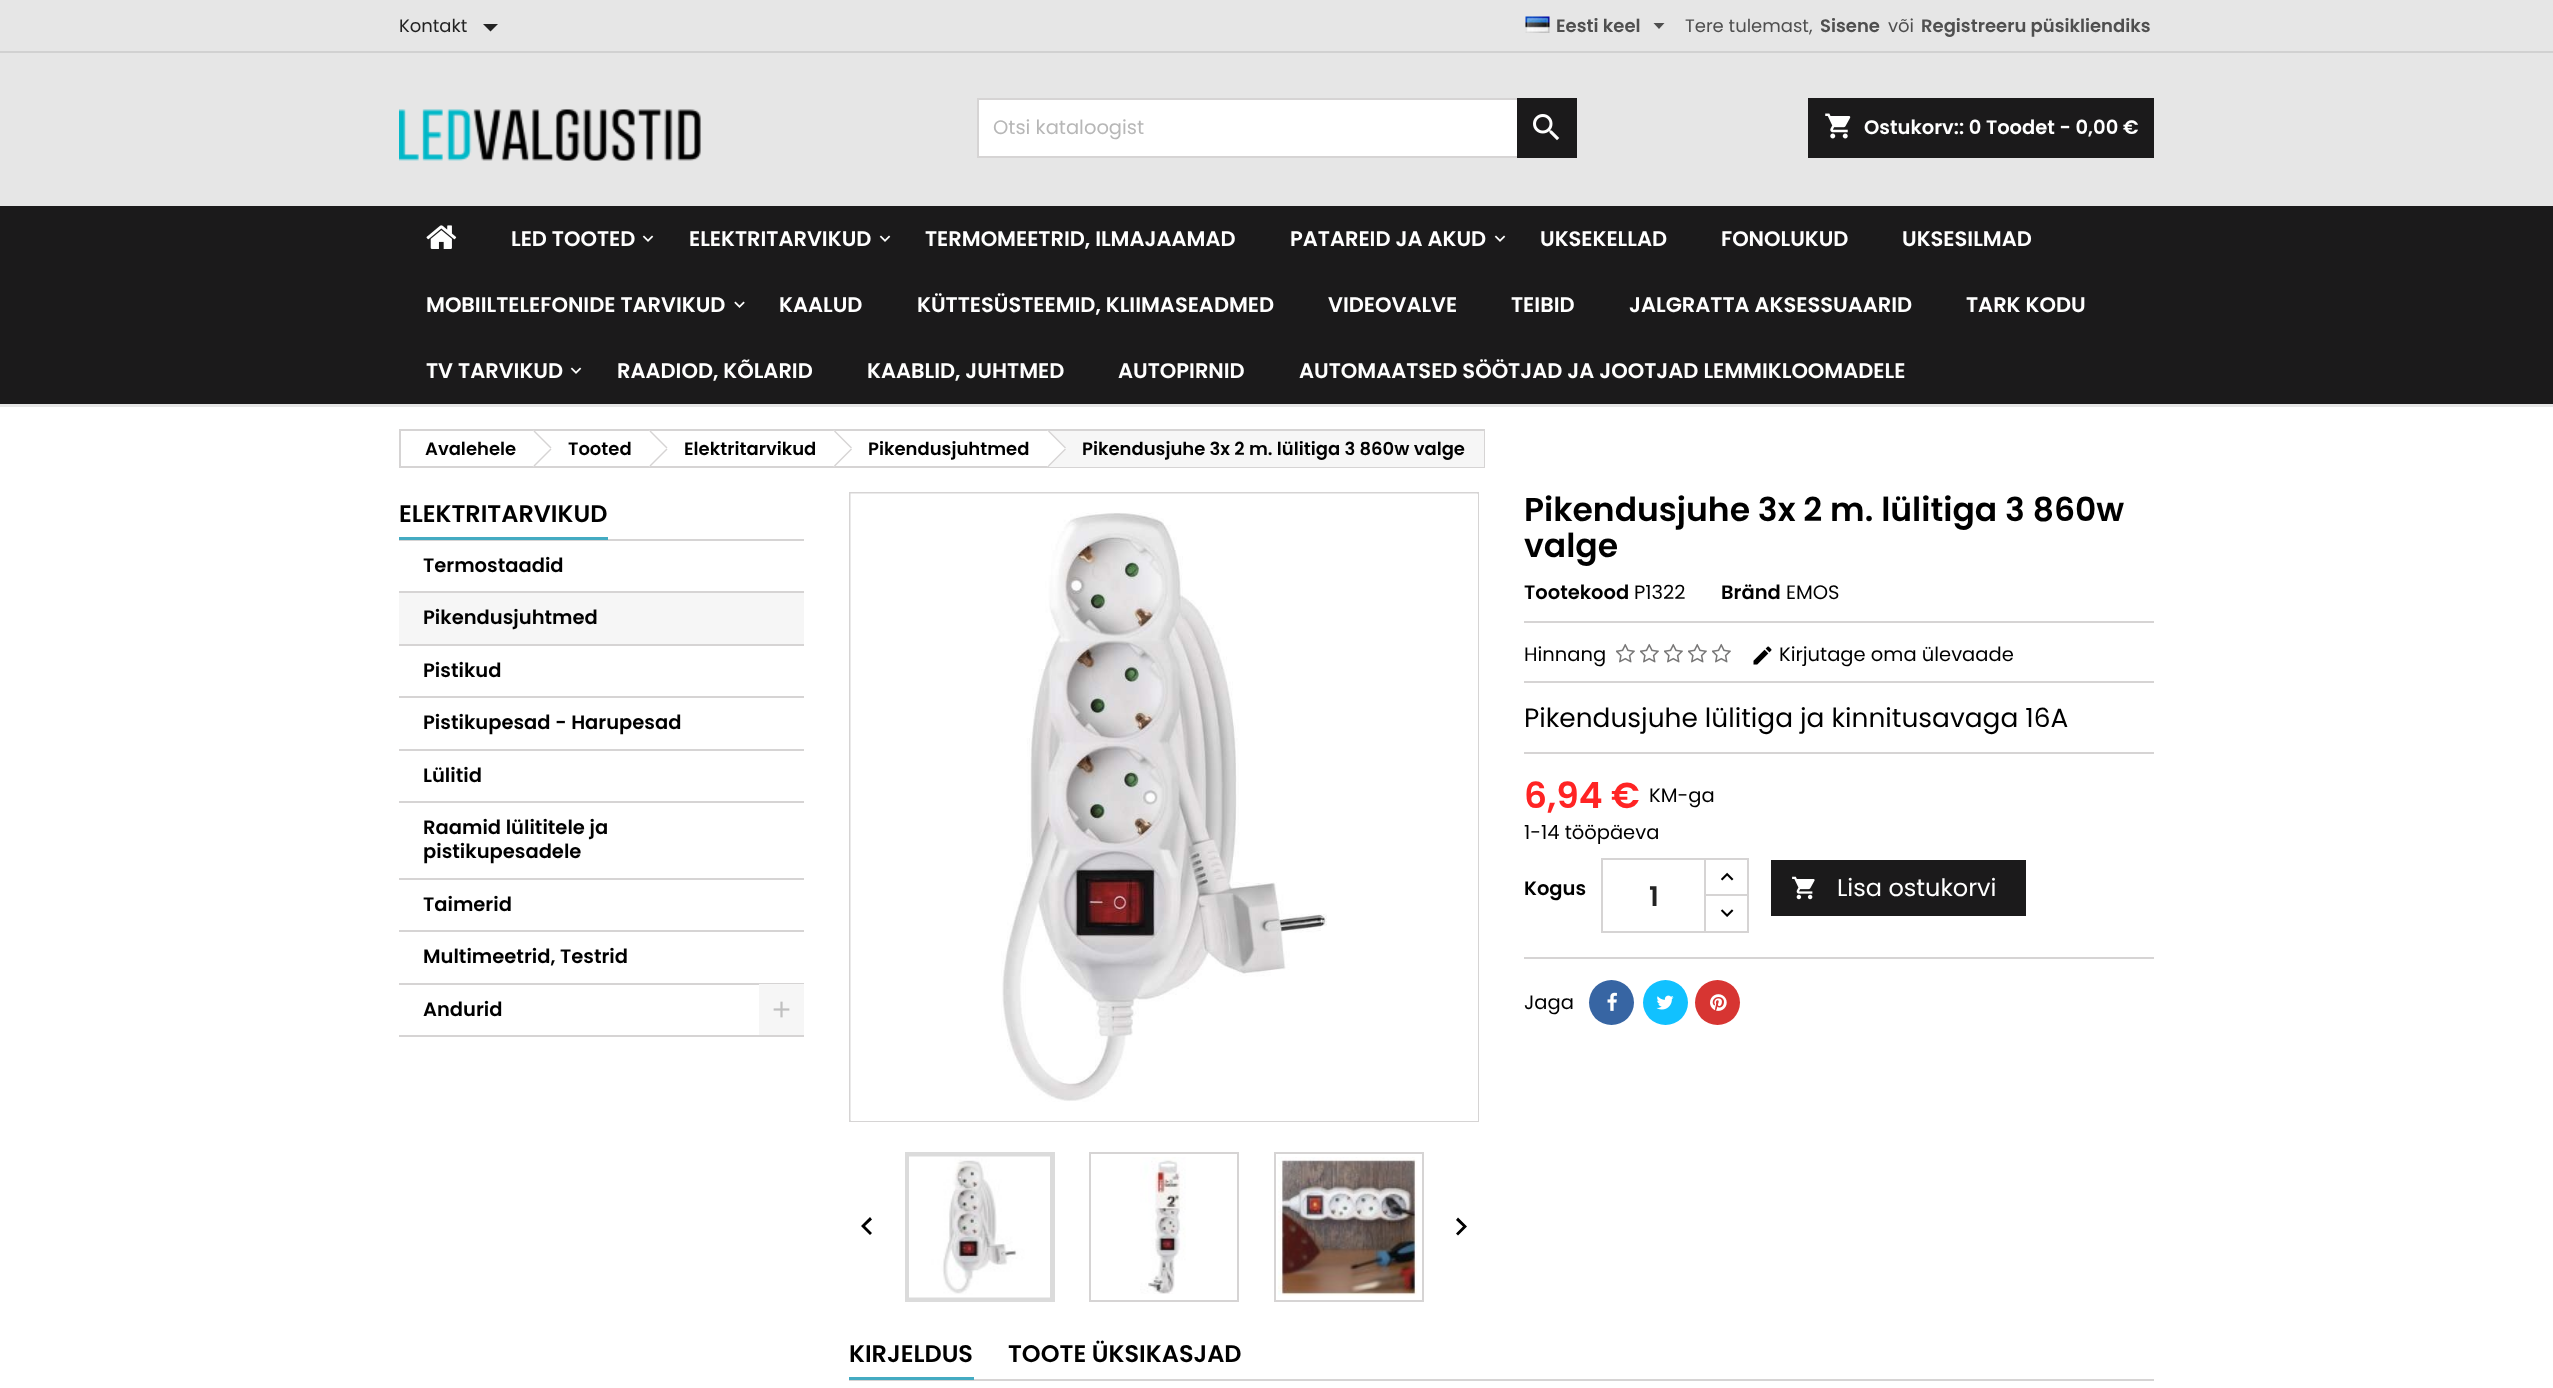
<svg xmlns="http://www.w3.org/2000/svg" width="2553" height="1388">
	<rect width="100%" height="100%" fill="#FFFFFF" />
	<rect x="0" y="0" width="2553" height="51" fill="#E6E6E6" />
	<rect x="0" y="51" width="2553" height="2" fill="#D1D1D1" />
	<text x="399" y="32" font-family="Poppins" font-size="18" fill="#232323">Kontakt</text>
	<path d="M483 24H498L490.5 31.5Z" fill="#232323" />
	<image x="1525" y="16" width="25" height="17" href="assets/img1.png" />
	<text x="1556" y="32" font-family="Poppins" font-size="18" font-weight="600" fill="#4F4F4F">Eesti keel</text>
	<path d="M1653.5 23H1664.5L1659 29Z" fill="#4F4F4F" />
	<text x="1685" y="32" font-family="Poppins" font-size="18" fill="#4F4F4F">Tere tulemast,</text>
	<text x="1820" y="32" font-family="Poppins" font-size="18" font-weight="600" fill="#4F4F4F">Sisene</text>
	<text x="1888" y="32" font-family="Poppins" font-size="18" fill="#4F4F4F">või</text>
	<text x="1921" y="32" font-family="Poppins" font-size="18" font-weight="600" fill="#4F4F4F">Registreeru püsikliendiks</text>
	<rect x="0" y="53" width="2553" height="153" fill="#E6E6E6" />
	<image x="399" y="109" width="302" height="52" href="assets/img2.png" />
	<rect x="979" y="100" width="538" height="56" fill="#FFFFFF" />
	<rect x="978" y="99" width="598" height="58" fill="none" stroke="#D6D4D4" stroke-width="2" />
	<text x="993" y="134" font-family="Poppins" font-size="19.5" fill="#B7B7B7">Otsi kataloogist</text>
	<rect x="1517" y="98" width="60" height="60" fill="#1B1A1B" />
	<image x="1533" y="114" width="27" height="27" href="assets/img3.png" />
	<rect x="1808" y="98" width="346" height="60" fill="#1B1A1B" />
	<image x="1825" y="113" width="26" height="26" href="assets/img4.png" />
	<text x="1864" y="134" font-family="Poppins" font-size="19.5" font-weight="600" fill="#FFFFFF">Ostukorv:: 0 Toodet - 0,00 €</text>
	<rect x="0" y="206" width="2553" height="198" fill="#1B1A1B" />
	<rect x="0" y="404" width="2553" height="3" fill="#E6E6E6" />
	<image x="426" y="225" width="31" height="24" href="assets/img5.png" />
	<text x="511" y="246" font-family="Poppins" font-size="21" font-weight="600" fill="#FFFFFF">LED TOOTED</text>
	<image x="642" y="235" width="12" height="7" href="assets/img6.png" />
	<text x="689" y="246" font-family="Poppins" font-size="21" font-weight="600" fill="#FFFFFF">ELEKTRITARVIKUD</text>
	<image x="879" y="235" width="12" height="7" href="assets/img6.png" />
	<g font-family="Poppins" font-size="21" font-weight="600" fill="#FFFFFF">
		<text x="925" y="246">TERMOMEETRID, ILMAJAAMAD</text>
		<text x="1290" y="246">PATAREID JA AKUD</text>
	</g>
	<image x="1494" y="235" width="12" height="7" href="assets/img6.png" />
	<g font-family="Poppins" font-size="21" font-weight="600" fill="#FFFFFF">
		<text x="1540" y="246">UKSEKELLAD</text>
		<text x="1721" y="246">FONOLUKUD</text>
		<text x="1902" y="246">UKSESILMAD</text>
		<text x="426" y="312">MOBIILTELEFONIDE TARVIKUD</text>
	</g>
	<image x="734" y="301" width="11" height="7" href="assets/img7.png" />
	<g font-family="Poppins" font-size="21" font-weight="600" fill="#FFFFFF">
		<text x="779" y="312">KAALUD</text>
		<text x="917" y="312">KÜTTESÜSTEEMID, KLIIMASEADMED</text>
		<text x="1328" y="312">VIDEOVALVE</text>
		<text x="1511" y="312">TEIBID</text>
		<text x="1629" y="312">JALGRATTA AKSESSUAARID</text>
		<text x="1966" y="312">TARK KODU</text>
		<text x="426" y="378">TV TARVIKUD</text>
	</g>
	<image x="570" y="367" width="12" height="7" href="assets/img6.png" />
	<g font-family="Poppins" font-size="21" font-weight="600" fill="#FFFFFF">
		<text x="617" y="378">RAADIOD, KÕLARID</text>
		<text x="867" y="378">KAABLID, JUHTMED</text>
		<text x="1118" y="378">AUTOPIRNID</text>
		<text x="1299" y="378">AUTOMAATSED SÖÖTJAD JA JOOTJAD LEMMIKLOOMADELE</text>
	</g>
	<rect x="400" y="430" width="1084" height="37" fill="none" stroke="#D6D4D4" stroke-width="2" />
	<text x="425" y="455" font-family="Poppins" font-size="18" font-weight="600" fill="#000000">Avalehele</text>
	<path d="M535.5 431.5L550.5 446.5C551.5 447.5 551.5 449.5 550.5 450.5L535.5 465.5C534.5 466.5 532.5 466.5 531.5 465.5L516.5 450.5C515.5 449.5 515.5 447.5 516.5 446.5L531.5 431.5C532.5 430.5 534.5 430.5 535.5 431.5Z" fill="#FFFFFF" />
	<path d="M534.5 430.5L551.5 447.5L550.5 448.5L533.5 431.5Z" fill="#D6D4D4" />
	<path d="M550.5 448.5L551.5 449.5L534.5 466.5L533.5 465.5Z" fill="#D6D4D4" />
	<text x="568" y="455" font-family="Poppins" font-size="18" font-weight="600" fill="#000000">Tooted</text>
	<path d="M651.5 431.5L666.5 446.5C667.5 447.5 667.5 449.5 666.5 450.5L651.5 465.5C650.5 466.5 648.5 466.5 647.5 465.5L632.5 450.5C631.5 449.5 631.5 447.5 632.5 446.5L647.5 431.5C648.5 430.5 650.5 430.5 651.5 431.5Z" fill="#FFFFFF" />
	<path d="M650.5 430.5L667.5 447.5L666.5 448.5L649.5 431.5Z" fill="#D6D4D4" />
	<path d="M666.5 448.5L667.5 449.5L650.5 466.5L649.5 465.5Z" fill="#D6D4D4" />
	<text x="684" y="455" font-family="Poppins" font-size="18" font-weight="600" fill="#000000">Elektritarvikud</text>
	<path d="M836.5 431.5L851 446.5C852.5 447.5 852.5 449.5 851 450.5L836.5 465.5C835 466.5 833 466.5 832 465.5L817 450.5C816 449.5 816 447.5 817 446.5L832 431.5C833 430.5 835 430.5 836.5 431.5Z" fill="#FFFFFF" />
	<path d="M835 430.5L852 447.5L851 448.5L834 431.5Z" fill="#D6D4D4" />
	<path d="M851 448.5L852 449.5L835 466.5L834 465.5Z" fill="#D6D4D4" />
	<text x="868" y="455" font-family="Poppins" font-size="18" font-weight="600" fill="#000000">Pikendusjuhtmed</text>
	<rect x="1049" y="431" width="435" height="36" fill="#F6F6F6" />
	<path d="M1050 431.5L1065 446.5C1066 447.5 1066 449.5 1065 450.5L1050 465.5C1048.5 466.5 1047 466.5 1045.5 465.5L1031 450.5C1029.5 449.5 1029.5 447.5 1031 446.5L1045.5 431.5C1047 430.5 1048.5 430.5 1050 431.5Z" fill="#FFFFFF" />
	<path d="M1049 430.5L1066 447.5L1065 448.5L1048 431.5Z" fill="#D6D4D4" />
	<path d="M1065 448.5L1066 449.5L1049 466.5L1048 465.5Z" fill="#D6D4D4" />
	<text x="1082" y="455" font-family="Poppins" font-size="18" font-weight="600" fill="#000000">Pikendusjuhe 3x 2 m. lülitiga 3 860w valge</text>
	<rect x="399" y="539" width="405" height="2" fill="#D6D4D4" />
	<rect x="399" y="537" width="209" height="3" fill="#44ABC2" />
	<text x="399" y="522" font-family="Poppins" font-size="24" font-weight="600" fill="#000000">ELEKTRITARVIKUD</text>
	<rect x="399" y="591" width="405" height="2" fill="#D6D4D4" />
	<text x="423" y="572" font-family="Poppins" font-size="19.5" font-weight="600" fill="#000000">Termostaadid</text>
	<rect x="399" y="593" width="405" height="51" fill="#F6F6F6" />
	<rect x="399" y="644" width="405" height="2" fill="#D6D4D4" />
	<text x="423" y="624" font-family="Poppins" font-size="19.5" font-weight="600" fill="#000000">Pikendusjuhtmed</text>
	<rect x="399" y="696" width="405" height="2" fill="#D6D4D4" />
	<text x="423" y="677" font-family="Poppins" font-size="19.5" font-weight="600" fill="#000000">Pistikud</text>
	<rect x="399" y="749" width="405" height="2" fill="#D6D4D4" />
	<text x="423" y="729" font-family="Poppins" font-size="19.5" font-weight="600" fill="#000000">Pistikupesad - Harupesad</text>
	<rect x="399" y="801" width="405" height="2" fill="#D6D4D4" />
	<text x="423" y="782" font-family="Poppins" font-size="19.5" font-weight="600" fill="#000000">Lülitid</text>
	<rect x="399" y="878" width="405" height="2" fill="#D6D4D4" />
	<g font-family="Poppins" font-size="19.5" font-weight="600" fill="#000000">
		<text x="423" y="834">Raamid lülititele ja</text>
		<text x="423" y="858">pistikupesadele</text>
	</g>
	<rect x="399" y="930" width="405" height="2" fill="#D6D4D4" />
	<text x="423" y="911" font-family="Poppins" font-size="19.5" font-weight="600" fill="#000000">Taimerid</text>
	<rect x="399" y="983" width="405" height="2" fill="#D6D4D4" />
	<text x="423" y="963" font-family="Poppins" font-size="19.5" font-weight="600" fill="#000000">Multimeetrid, Testrid</text>
	<rect x="399" y="1035" width="405" height="2" fill="#D6D4D4" />
	<text x="423" y="1016" font-family="Poppins" font-size="19.5" font-weight="600" fill="#000000">Andurid</text>
	<rect x="759" y="984" width="45" height="51" fill="#F6F6F6" />
	<image x="773" y="1001" width="17" height="17" href="assets/img8.png" />
	<rect x="850" y="493" width="628" height="628" fill="none" stroke="#D6D4D4" stroke-width="2" />
	<rect x="851" y="494" width="627" height="627" fill="#FFFFFF" />
	<image x="850" y="493" width="628" height="628" href="assets/img9.png" />
	<rect x="907.5" y="1154.5" width="145" height="145" fill="none" stroke="#DBDBDB" stroke-width="5" />
	<rect x="1090" y="1153" width="148" height="148" fill="none" stroke="#D6D4D4" stroke-width="2" />
	<rect x="1275" y="1153" width="148" height="148" fill="none" stroke="#D6D4D4" stroke-width="2" />
	<image x="909" y="1156" width="141" height="142" href="assets/img10.png" />
	<image x="1140" y="1157" width="46" height="137" href="assets/img11.png" />
	<image x="1278" y="1157" width="139" height="139" href="assets/img12.png" />
	<path d="M872 1233L870 1235L861 1226L870 1217L872 1219.5L865 1226Z" fill="#000000" />
	<path d="M1456 1233.5L1463 1226.5L1456 1220L1458 1217.5L1467 1226.5L1458 1235.5Z" fill="#000000" />
	<g font-family="Poppins" font-size="33" font-weight="600" fill="#000000">
		<text x="1524" y="521">Pikendusjuhe 3x 2 m. lülitiga 3 860w</text>
		<text x="1524" y="557">valge</text>
	</g>
	<text x="1524" y="599" font-family="Poppins" font-size="19.5" font-weight="600" fill="#000000">Tootekood</text>
	<text x="1634" y="599" font-family="Poppins" font-size="19.5" fill="#000000">P1322</text>
	<text x="1721" y="599" font-family="Poppins" font-size="19.5" font-weight="600" fill="#000000">Bränd</text>
	<text x="1786" y="599" font-family="Poppins" font-size="19.5" fill="#000000">EMOS</text>
	<rect x="1524" y="621" width="630" height="2" fill="#D6D4D4" />
	<text x="1524" y="661" font-family="Poppins" font-size="19.5" fill="#000000">Hinnang</text>
	<image x="1616" y="643" width="19" height="20" href="assets/img13.png" />
	<image x="1640" y="643" width="19" height="20" href="assets/img13.png" />
	<image x="1664" y="643" width="19" height="20" href="assets/img13.png" />
	<image x="1688" y="643" width="19" height="20" href="assets/img13.png" />
	<image x="1712" y="643" width="19" height="20" href="assets/img13.png" />
	<image x="1753" y="646" width="19" height="19" href="assets/img14.png" />
	<text x="1779" y="661" font-family="Poppins" font-size="19.5" fill="#000000">Kirjutage oma ülevaade</text>
	<rect x="1524" y="681" width="630" height="2" fill="#D6D4D4" />
	<text x="1524" y="727" font-family="Poppins" font-size="26.4" fill="#000000">Pikendusjuhe lülitiga ja kinnitusavaga 16A</text>
	<rect x="1524" y="752" width="630" height="2" fill="#D6D4D4" />
	<text x="1524" y="808" font-family="Poppins" font-size="36" font-weight="600" fill="#FF2424">6,94 €</text>
	<g font-family="Poppins" font-size="19.5" fill="#000000">
		<text x="1649" y="802">KM-ga</text>
		<text x="1524" y="839">1-14 tööpäeva</text>
	</g>
	<text x="1524" y="895" font-family="Poppins" font-size="19.5" font-weight="600" fill="#000000">Kogus</text>
	<rect x="1705" y="859" width="43" height="37" fill="none" stroke="#D6D4D4" stroke-width="2" />
	<rect x="1706" y="896" width="41" height="1" fill="#FFFFFF" />
	<rect x="1705" y="895" width="43" height="37" fill="none" stroke="#D6D4D4" stroke-width="2" />
	<rect x="1602" y="859" width="103" height="73" fill="none" stroke="#D6D4D4" stroke-width="2" />
	<text x="1649" y="906" font-family="Poppins" font-size="27" font-weight="600" fill="#232323">1</text>
	<image x="1721" y="872" width="13" height="9" href="assets/img15.png" />
	<image x="1720" y="909" width="14" height="8" href="assets/img16.png" />
	<rect x="1771" y="860" width="255" height="56" fill="#1B1A1B" />
	<image x="1792" y="876" width="23" height="24" href="assets/img17.png" />
	<text x="1837" y="896" font-family="Poppins" font-size="24" fill="#FFFFFF">Lisa ostukorvi</text>
	<rect x="1524" y="957" width="630" height="2" fill="#D6D4D4" />
	<text x="1524" y="1009" font-family="Poppins" font-size="19.5" fill="#000000">Jaga</text>
	<circle cx="1611.5" cy="1002.5" r="22.5" fill="#3765A3" />
	<image x="1607" y="992" width="10" height="19" href="assets/img18.png" />
	<circle cx="1665.5" cy="1002.5" r="22.5" fill="#11C1FF" />
	<image x="1656" y="995" width="18" height="15" href="assets/img19.png" />
	<circle cx="1717.5" cy="1002.5" r="22.5" fill="#D73532" />
	<image x="1710" y="994" width="17" height="17" href="assets/img20.png" />
	<rect x="849" y="1379" width="1305" height="2" fill="#D6D4D4" />
	<rect x="849" y="1377" width="125" height="3" fill="#44ABC2" />
	<g font-family="Poppins" font-size="24" font-weight="600" fill="#000000">
		<text x="849" y="1362">KIRJELDUS</text>
		<text x="1008" y="1362">TOOTE ÜKSIKASJAD</text>
	</g>
</svg>
